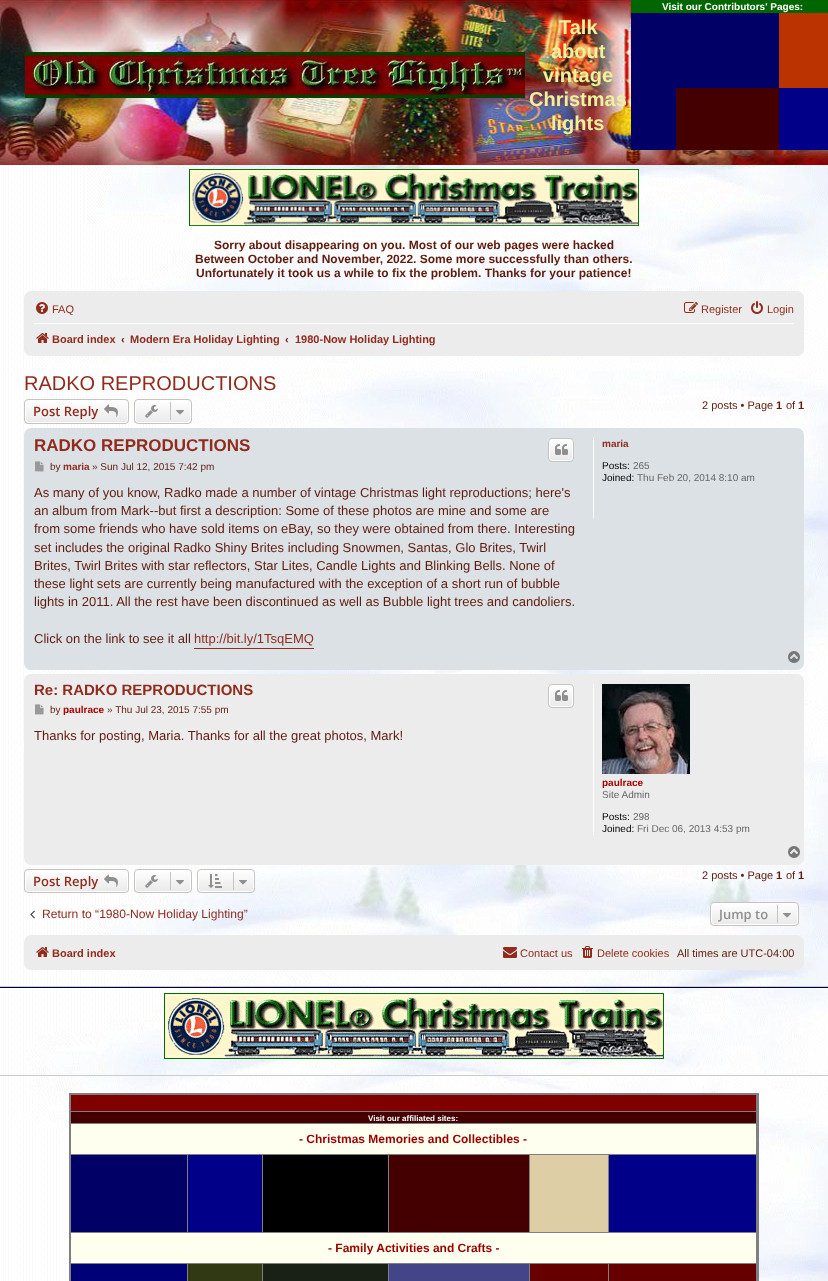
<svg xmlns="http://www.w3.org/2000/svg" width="828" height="1281">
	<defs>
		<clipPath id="clip1"><rect x="24" y="399" width="105" height="25" rx="4" /></clipPath>
		<linearGradient id="g1" gradientUnits="userSpaceOnUse" x1="77" y1="400" x2="77" y2="423"><stop offset="0" stop-color="#FFFFFF" /><stop offset="1" stop-color="#E9E9E9" /></linearGradient>
		<clipPath id="clip2"><rect x="134" y="399" width="58" height="25" rx="4" /></clipPath>
		<linearGradient id="g2" gradientUnits="userSpaceOnUse" x1="163" y1="400" x2="163" y2="423"><stop offset="0" stop-color="#FFFFFF" /><stop offset="1" stop-color="#E9E9E9" /></linearGradient>
		<clipPath id="clip3"><rect x="548" y="438" width="26" height="24" rx="4" /></clipPath>
		<linearGradient id="g3" gradientUnits="userSpaceOnUse" x1="561" y1="439" x2="561" y2="461"><stop offset="0" stop-color="#FFFFFF" /><stop offset="1" stop-color="#E9E9E9" /></linearGradient>
		<clipPath id="clip4"><rect x="548" y="684" width="26" height="24" rx="4" /></clipPath>
		<linearGradient id="g4" gradientUnits="userSpaceOnUse" x1="561" y1="685" x2="561" y2="707"><stop offset="0" stop-color="#FFFFFF" /><stop offset="1" stop-color="#E9E9E9" /></linearGradient>
		<clipPath id="clip5"><rect x="24" y="869" width="105" height="24" rx="4" /></clipPath>
		<linearGradient id="g5" gradientUnits="userSpaceOnUse" x1="77" y1="870" x2="77" y2="892"><stop offset="0" stop-color="#FFFFFF" /><stop offset="1" stop-color="#E9E9E9" /></linearGradient>
		<clipPath id="clip6"><rect x="134" y="869" width="58" height="24" rx="4" /></clipPath>
		<linearGradient id="g6" gradientUnits="userSpaceOnUse" x1="163" y1="870" x2="163" y2="892"><stop offset="0" stop-color="#FFFFFF" /><stop offset="1" stop-color="#E9E9E9" /></linearGradient>
		<clipPath id="clip7"><rect x="197" y="869" width="58" height="24" rx="4" /></clipPath>
		<linearGradient id="g7" gradientUnits="userSpaceOnUse" x1="226" y1="870" x2="226" y2="892"><stop offset="0" stop-color="#FFFFFF" /><stop offset="1" stop-color="#E9E9E9" /></linearGradient>
		<clipPath id="clip8"><rect x="710" y="902" width="89" height="24" rx="4" /></clipPath>
		<linearGradient id="g8" gradientUnits="userSpaceOnUse" x1="755" y1="903" x2="755" y2="925"><stop offset="0" stop-color="#FFFFFF" /><stop offset="1" stop-color="#E9E9E9" /></linearGradient>
	</defs>
	<rect width="100%" height="100%" fill="#FFFFFF" />
	<image x="0" y="165" width="828" height="1116" href="assets/img1.png" />
	<image x="0" y="0" width="828" height="165" href="assets/img2.png" />
	<rect x="631" y="0" width="197" height="13" fill="#006600" />
	<text x="662" y="10" font-family="Liberation Sans" font-size="10" font-weight="700" fill="#FFFFFF">Visit our Contributors' Pages:</text>
	<image x="25" y="52" width="500" height="46" href="assets/img3.png" />
	<g font-family="Liberation Sans" font-size="20" font-weight="700" fill="#EFF09B">
		<text x="559" y="34">Talk</text>
		<text x="551" y="58">about</text>
		<text x="543" y="82">vintage</text>
		<text x="529" y="106">Christmas</text>
		<text x="551" y="130">lights</text>
	</g>
	<rect x="631" y="13" width="148" height="75" fill="#000066" />
	<rect x="779" y="13" width="49" height="75" fill="#BB3300" />
	<rect x="631" y="88" width="45" height="62" fill="#000066" />
	<rect x="676" y="88" width="103" height="62" fill="#440000" />
	<rect x="779" y="88" width="49" height="62" fill="#000088" />
	<image x="189" y="169" width="450" height="57" href="assets/img4.png" />
	<g font-family="Liberation Sans" font-size="12" font-weight="700" fill="#5F1B0E">
		<text x="214" y="249">Sorry about disappearing on you. Most of our web pages were hacked</text>
		<text x="195" y="263">Between October and November, 2022. Some more successfully than others.</text>
		<text x="196" y="277">Unfortunately it took us a while to fix the problem. Thanks for your patience!</text>
	</g>
	<rect x="24" y="291" width="780" height="65" rx="7" fill="#ECECEC" />
	<image x="36" y="302" width="12" height="12" href="assets/img5.png" />
	<text x="52" y="313" font-family="Liberation Sans" font-size="11" fill="#902B1D">FAQ</text>
	<image x="684" y="302" width="14" height="11" href="assets/img6.png" />
	<text x="701" y="313" font-family="Liberation Sans" font-size="11" fill="#902B1D">Register</text>
	<image x="751" y="301" width="12" height="13" href="assets/img7.png" />
	<text x="767" y="313" font-family="Liberation Sans" font-size="11" fill="#902B1D">Login</text>
	<rect x="34" y="323" width="760" height="1" fill="#FFFFFF" />
	<image x="36" y="333" width="13" height="10" href="assets/img8.png" />
	<text x="52" y="343" font-family="Liberation Sans" font-size="11" font-weight="700" fill="#902B1D">Board index</text>
	<text x="121" y="343" font-family="Liberation Sans" font-size="11" font-weight="700" fill="#5F1B0E">‹</text>
	<text x="130" y="343" font-family="Liberation Sans" font-size="11" font-weight="700" fill="#902B1D">Modern Era Holiday Lighting</text>
	<text x="285" y="343" font-family="Liberation Sans" font-size="11" font-weight="700" fill="#5F1B0E">‹</text>
	<text x="295" y="343" font-family="Liberation Sans" font-size="11" font-weight="700" fill="#902B1D">1980-Now Holiday Lighting</text>
	<text x="24" y="390" font-family="Liberation Sans" font-size="20" fill="#902B1D">RADKO REPRODUCTIONS</text>
	<g clip-path="url(#clip1)">
		<rect x="24" y="400" width="105" height="23" fill="url(#g1)" />
	</g>
	<rect x="25.5" y="400.5" width="102" height="22" rx="2.5" fill="none" stroke="#FFFFFF" />
	<rect x="24.5" y="399.5" width="104" height="24" rx="3.5" fill="none" stroke="#C7C3BF" />
	<text x="33" y="416" font-family="Open Sans" font-size="13" font-weight="600" fill="#902B1D">Post Reply</text>
	<image x="104" y="404" width="14" height="13" href="assets/img9.png" />
	<g clip-path="url(#clip2)">
		<rect x="134" y="400" width="58" height="23" fill="url(#g2)" />
	</g>
	<rect x="135.5" y="400.5" width="55" height="22" rx="2.5" fill="none" stroke="#FFFFFF" />
	<rect x="134.5" y="399.5" width="57" height="24" rx="3.5" fill="none" stroke="#C7C3BF" />
	<image x="145" y="405" width="13" height="13" href="assets/img10.png" />
	<rect x="170" y="402" width="1" height="18" fill="#C7C3BF" />
	<image x="176" y="410" width="8" height="5" href="assets/img11.png" />
	<text x="702" y="409" font-family="Liberation Sans" font-size="11" fill="#5F1B0E">2 posts • Page</text>
	<text x="776" y="409" font-family="Liberation Sans" font-size="11" font-weight="700" fill="#5F1B0E">1</text>
	<text x="786" y="409" font-family="Liberation Sans" font-size="11" fill="#5F1B0E">of</text>
	<text x="798" y="409" font-family="Liberation Sans" font-size="11" font-weight="700" fill="#5F1B0E">1</text>
	<rect x="24" y="428" width="780" height="242" rx="7" fill="#DCE1E5" />
	<text x="34" y="451" font-family="Liberation Sans" font-size="17" font-weight="700" fill="#902B1D">RADKO REPRODUCTIONS</text>
	<g clip-path="url(#clip3)">
		<rect x="548" y="439" width="26" height="22" fill="url(#g3)" />
	</g>
	<rect x="549.5" y="439.5" width="23" height="21" rx="2.5" fill="none" stroke="#FFFFFF" />
	<rect x="548.5" y="438.5" width="25" height="23" rx="3.5" fill="none" stroke="#C7C3BF" />
	<image x="555" y="444" width="13" height="11" href="assets/img12.png" />
	<image x="35" y="461" width="9" height="11" href="assets/img13.png" />
	<text x="50" y="470" font-family="Liberation Sans" font-size="10" fill="#5F1B0E">by</text>
	<text x="63" y="470" font-family="Liberation Sans" font-size="10" font-weight="700" fill="#902B1D">maria</text>
	<text x="92" y="470" font-family="Liberation Sans" font-size="10" fill="#5F1B0E">» Sun Jul 12, 2015 7:42 pm</text>
	<g font-family="Liberation Sans" font-size="13" fill="#5F1B0E">
		<text x="34" y="497">As many of you know, Radko made a number of vintage Christmas light reproductions; here's</text>
		<text x="34" y="515">an album from Mark--but first a description: Some of these photos are mine and some are</text>
		<text x="34" y="533">from some friends who have sold items on eBay, so they were obtained from there. Interesting</text>
		<text x="34" y="552">set includes the original Radko Shiny Brites including Snowmen, Santas, Glo Brites, Twirl</text>
		<text x="34" y="570">Brites, Twirl Brites with star reflectors, Star Lites, Candle Lights and Blinking Bells. None of</text>
		<text x="34" y="588">these light sets are currently being manufactured with the exception of a short run of bubble</text>
		<text x="34" y="606">lights in 2011. All the rest have been discontinued as well as Bubble light trees and candoliers.</text>
		<text x="34" y="643">Click on the link to see it all</text>
	</g>
	<rect x="194" y="648" width="120" height="1" fill="#902B1D" />
	<text x="194" y="643" font-family="Liberation Sans" font-size="13" fill="#902B1D">http://bit.ly/1TsqEMQ</text>
	<rect x="593" y="438" width="1" height="80" fill="#FFFFFF" />
	<text x="602" y="447" font-family="Liberation Sans" font-size="10" font-weight="700" fill="#902B1D">maria</text>
	<text x="602" y="469" font-family="Liberation Sans" font-size="10" fill="#000000">Posts:</text>
	<text x="633" y="469" font-family="Liberation Sans" font-size="10" fill="#666666">265</text>
	<text x="602" y="481" font-family="Liberation Sans" font-size="10" fill="#000000">Joined:</text>
	<text x="637" y="481" font-family="Liberation Sans" font-size="10" fill="#666666">Thu Feb 20, 2014 8:10 am</text>
	<image x="788" y="651" width="12" height="12" href="assets/img14.png" />
	<rect x="24" y="674" width="780" height="191" rx="7" fill="#ECECEC" />
	<text x="34" y="695" font-family="Liberation Sans" font-size="15" font-weight="700" fill="#902B1D">Re: RADKO REPRODUCTIONS</text>
	<g clip-path="url(#clip4)">
		<rect x="548" y="685" width="26" height="22" fill="url(#g4)" />
	</g>
	<rect x="549.5" y="685.5" width="23" height="21" rx="2.5" fill="none" stroke="#FFFFFF" />
	<rect x="548.5" y="684.5" width="25" height="23" rx="3.5" fill="none" stroke="#C7C3BF" />
	<image x="555" y="690" width="13" height="11" href="assets/img12.png" />
	<image x="35" y="704" width="9" height="11" href="assets/img15.png" />
	<text x="50" y="713" font-family="Liberation Sans" font-size="10" fill="#5F1B0E">by</text>
	<text x="63" y="713" font-family="Liberation Sans" font-size="10" font-weight="700" fill="#AA0000">paulrace</text>
	<text x="107" y="713" font-family="Liberation Sans" font-size="10" fill="#5F1B0E">» Thu Jul 23, 2015 7:55 pm</text>
	<text x="34" y="740" font-family="Liberation Sans" font-size="13" fill="#5F1B0E">Thanks for posting, Maria. Thanks for all the great photos, Mark!</text>
	<rect x="593" y="684" width="1" height="151" fill="#FFFFFF" />
	<image x="602" y="684" width="88" height="90" href="assets/img16.png" />
	<text x="602" y="786" font-family="Liberation Sans" font-size="10" font-weight="700" fill="#AA0000">paulrace</text>
	<text x="602" y="798" font-family="Liberation Sans" font-size="10" fill="#666666">Site Admin</text>
	<text x="602" y="820" font-family="Liberation Sans" font-size="10" fill="#000000">Posts:</text>
	<text x="633" y="820" font-family="Liberation Sans" font-size="10" fill="#666666">298</text>
	<text x="602" y="832" font-family="Liberation Sans" font-size="10" fill="#000000">Joined:</text>
	<text x="637" y="832" font-family="Liberation Sans" font-size="10" fill="#666666">Fri Dec 06, 2013 4:53 pm</text>
	<image x="788" y="846" width="12" height="12" href="assets/img17.png" />
	<g clip-path="url(#clip5)">
		<rect x="24" y="870" width="105" height="22" fill="url(#g5)" />
	</g>
	<rect x="25.5" y="870.5" width="102" height="21" rx="2.5" fill="none" stroke="#FFFFFF" />
	<rect x="24.5" y="869.5" width="104" height="23" rx="3.5" fill="none" stroke="#C7C3BF" />
	<text x="33" y="886" font-family="Open Sans" font-size="13" font-weight="600" fill="#902B1D">Post Reply</text>
	<image x="104" y="874" width="14" height="13" href="assets/img9.png" />
	<g clip-path="url(#clip6)">
		<rect x="134" y="870" width="58" height="22" fill="url(#g6)" />
	</g>
	<rect x="135.5" y="870.5" width="55" height="21" rx="2.5" fill="none" stroke="#FFFFFF" />
	<rect x="134.5" y="869.5" width="57" height="23" rx="3.5" fill="none" stroke="#C7C3BF" />
	<image x="145" y="875" width="13" height="13" href="assets/img10.png" />
	<rect x="170" y="872" width="1" height="18" fill="#C7C3BF" />
	<image x="176" y="880" width="8" height="5" href="assets/img11.png" />
	<g clip-path="url(#clip7)">
		<rect x="197" y="870" width="58" height="22" fill="url(#g7)" />
	</g>
	<rect x="198.5" y="870.5" width="55" height="21" rx="2.5" fill="none" stroke="#FFFFFF" />
	<rect x="197.5" y="869.5" width="57" height="23" rx="3.5" fill="none" stroke="#C7C3BF" />
	<image x="208" y="874" width="14" height="14" href="assets/img18.png" />
	<rect x="233" y="872" width="1" height="18" fill="#C7C3BF" />
	<image x="239" y="880" width="8" height="5" href="assets/img11.png" />
	<text x="702" y="879" font-family="Liberation Sans" font-size="11" fill="#5F1B0E">2 posts • Page</text>
	<text x="776" y="879" font-family="Liberation Sans" font-size="11" font-weight="700" fill="#5F1B0E">1</text>
	<text x="786" y="879" font-family="Liberation Sans" font-size="11" fill="#5F1B0E">of</text>
	<text x="798" y="879" font-family="Liberation Sans" font-size="11" font-weight="700" fill="#5F1B0E">1</text>
	<image x="30" y="910" width="5" height="9" href="assets/img19.png" />
	<text x="42" y="918" font-family="Liberation Sans" font-size="12.1" fill="#902B1D">Return to “1980-Now Holiday Lighting”</text>
	<g clip-path="url(#clip8)">
		<rect x="710" y="903" width="89" height="22" fill="url(#g8)" />
	</g>
	<rect x="711.5" y="903.5" width="86" height="21" rx="2.5" fill="none" stroke="#FFFFFF" />
	<rect x="710.5" y="902.5" width="88" height="23" rx="3.5" fill="none" stroke="#C7C3BF" />
	<text x="719" y="919" font-family="Open Sans" font-size="13" font-weight="600" fill="#8F8F8F">Jump to</text>
	<rect x="777" y="905" width="1" height="18" fill="#C7C3BF" />
	<image x="783" y="913" width="8" height="5" href="assets/img11.png" />
	<rect x="24" y="935" width="780" height="35" rx="7" fill="#ECECEC" />
	<image x="36" y="947" width="13" height="10" href="assets/img8.png" />
	<text x="52" y="957" font-family="Liberation Sans" font-size="11" font-weight="700" fill="#902B1D">Board index</text>
	<image x="503" y="947" width="14" height="11" href="assets/img20.png" />
	<text x="520" y="957" font-family="Liberation Sans" font-size="11" fill="#902B1D">Contact us</text>
	<image x="582" y="946" width="11" height="12" href="assets/img21.png" />
	<text x="597" y="957" font-family="Liberation Sans" font-size="11" fill="#902B1D">Delete cookies</text>
	<text x="677" y="957" font-family="Liberation Sans" font-size="11" fill="#5F1B0E">All times are UTC-04:00</text>
	<rect x="0" y="987" width="828" height="1" fill="#000044" />
	<rect x="0" y="986" width="828" height="1" fill="#CCCCCC" />
	<image x="164" y="993" width="500" height="66" href="assets/img22.png" />
	<rect x="0" y="1075" width="828" height="1" fill="#CCCCCC" />
	<rect x="530" y="1264" width="226" height="17" fill="#660000" />
	<rect x="608" y="1154" width="149" height="1" fill="#808080" />
	<rect x="608" y="1263" width="149" height="1" fill="#808080" />
	<rect x="756" y="1232" width="1" height="49" fill="#808080" />
	<rect x="70" y="1232" width="687" height="1" fill="#808080" />
	<rect x="756" y="1123" width="1" height="110" fill="#808080" />
	<rect x="70" y="1123" width="687" height="1" fill="#808080" />
	<rect x="756" y="1111" width="1" height="13" fill="#808080" />
	<rect x="70" y="1111" width="687" height="1" fill="#808080" />
	<rect x="756" y="1094" width="1" height="18" fill="#808080" />
	<rect x="69" y="1093" width="690" height="2" fill="#808080" />
	<rect x="757" y="1093" width="2" height="188" fill="#808080" />
	<rect x="608" y="1154" width="1" height="79" fill="#808080" />
	<rect x="529" y="1154" width="80" height="1" fill="#808080" />
	<rect x="529" y="1154" width="1" height="79" fill="#808080" />
	<rect x="388" y="1154" width="142" height="1" fill="#808080" />
	<rect x="388" y="1154" width="1" height="79" fill="#808080" />
	<rect x="262" y="1154" width="127" height="1" fill="#808080" />
	<rect x="262" y="1154" width="1" height="79" fill="#808080" />
	<rect x="187" y="1154" width="76" height="1" fill="#808080" />
	<rect x="187" y="1154" width="1" height="79" fill="#808080" />
	<rect x="70" y="1154" width="118" height="1" fill="#808080" />
	<rect x="608" y="1263" width="1" height="18" fill="#808080" />
	<rect x="529" y="1263" width="80" height="1" fill="#808080" />
	<rect x="529" y="1263" width="1" height="18" fill="#808080" />
	<rect x="388" y="1263" width="142" height="1" fill="#808080" />
	<rect x="388" y="1263" width="1" height="18" fill="#808080" />
	<rect x="262" y="1263" width="127" height="1" fill="#808080" />
	<rect x="262" y="1263" width="1" height="18" fill="#808080" />
	<rect x="187" y="1263" width="76" height="1" fill="#808080" />
	<rect x="187" y="1263" width="1" height="18" fill="#808080" />
	<rect x="70" y="1263" width="118" height="1" fill="#808080" />
	<rect x="69" y="1093" width="2" height="188" fill="#808080" />
	<rect x="71" y="1095" width="685" height="16" fill="#800000" />
	<rect x="71" y="1112" width="685" height="11" fill="#440000" />
	<text x="368" y="1121" font-family="Liberation Sans" font-size="8" font-weight="700" fill="#FFFFFF">Visit our affiliated sites:</text>
	<rect x="71" y="1155" width="116" height="77" fill="#000066" />
	<rect x="188" y="1155" width="74" height="77" fill="#000088" />
	<rect x="263" y="1155" width="125" height="77" fill="#000000" />
	<rect x="389" y="1155" width="140" height="77" fill="#440000" />
	<rect x="530" y="1155" width="78" height="77" fill="#DECEA5" />
	<rect x="609" y="1155" width="147" height="77" fill="#000088" />
	<rect x="71" y="1124" width="685" height="30" fill="#FFFFF0" />
	<text x="299" y="1143" font-family="Liberation Sans" font-size="12" font-weight="700" fill="#990000">- Christmas Memories and Collectibles -</text>
	<rect x="71" y="1264" width="116" height="17" fill="#000077" />
	<rect x="188" y="1264" width="74" height="17" fill="#303911" />
	<rect x="263" y="1264" width="125" height="17" fill="#192116" />
	<rect x="389" y="1264" width="140" height="17" fill="#444488" />
	<rect x="71" y="1233" width="685" height="30" fill="#FFFFF0" />
	<text x="328" y="1252" font-family="Liberation Sans" font-size="12" font-weight="700" fill="#990000">- Family Activities and Crafts -</text>
</svg>
